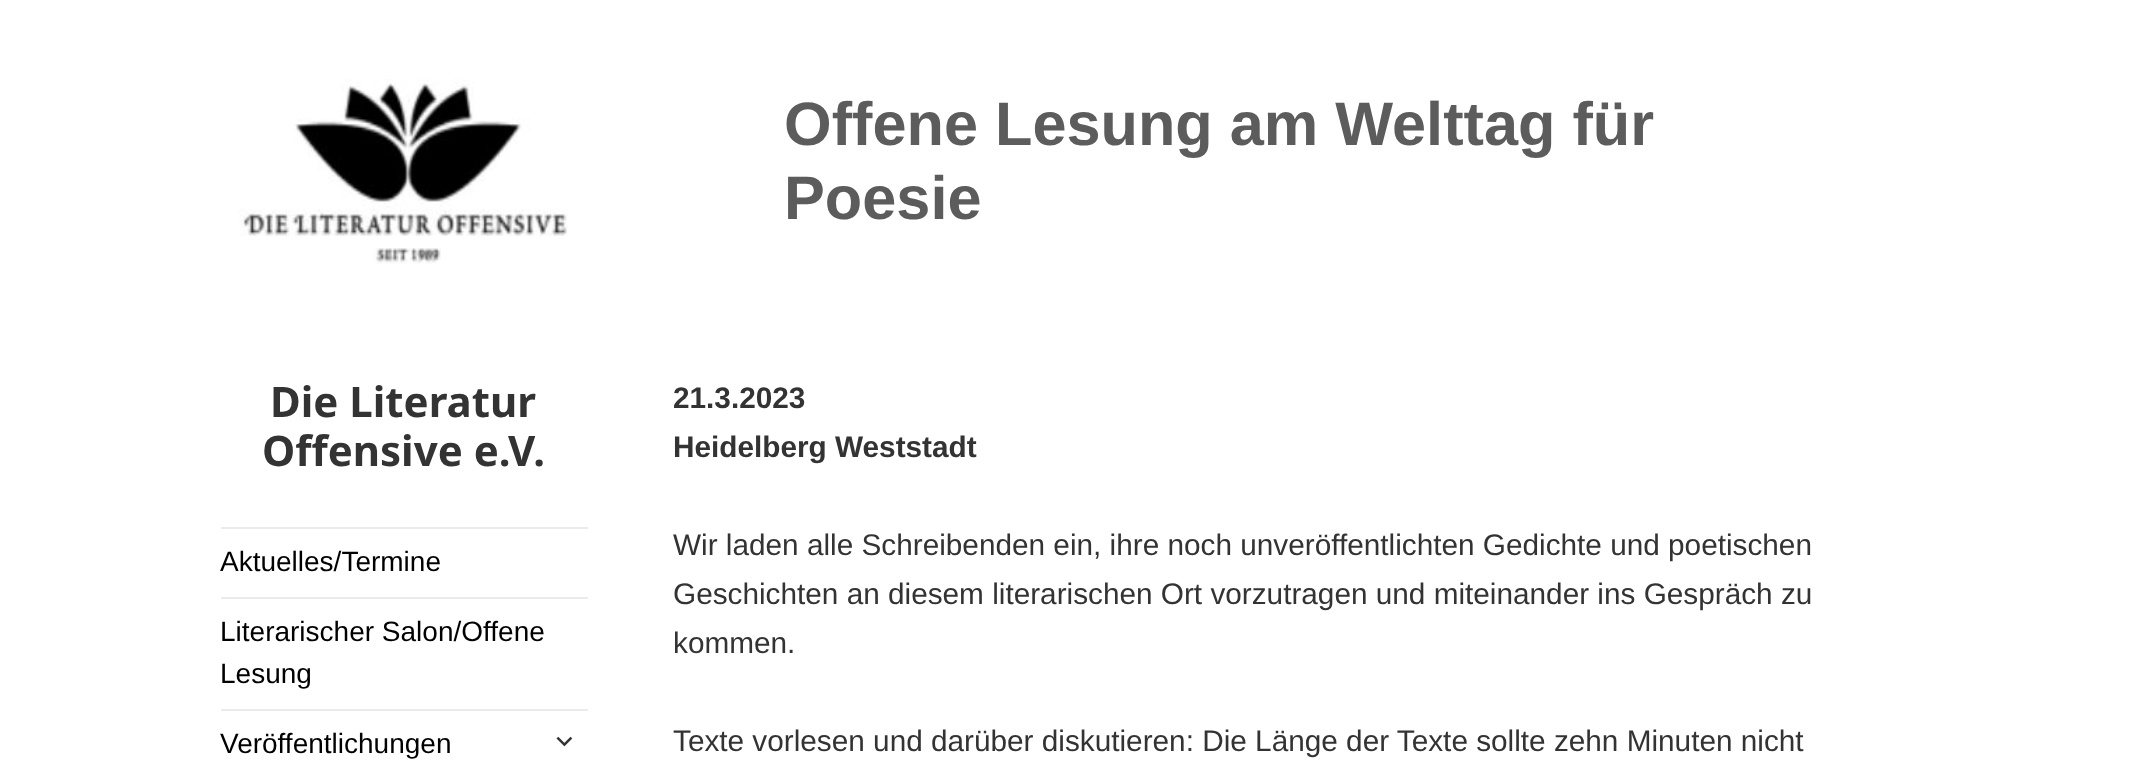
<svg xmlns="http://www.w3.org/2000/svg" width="2136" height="771">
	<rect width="100%" height="100%" fill="#FFFFFF" />
	<image x="239" y="79" width="329" height="185" href="assets/img1.png" />
	<g font-family="Noto Sans" font-size="42" font-weight="700" fill="#333333">
		<text x="270" y="417">Die Literatur</text>
		<text x="262" y="466">Offensive e.V.</text>
	</g>
	<rect x="221" y="527" width="367" height="2" fill="#EBEBEB" />
	<text x="220" y="571" font-family="Liberation Sans" font-size="28" fill="#000000">Aktuelles/Termine</text>
	<rect x="221" y="597" width="367" height="2" fill="#EBEBEB" />
	<g font-family="Liberation Sans" font-size="28" fill="#000000">
		<text x="220" y="641">Literarischer Salon/Offene</text>
		<text x="220" y="683">Lesung</text>
	</g>
	<rect x="221" y="709" width="367" height="2" fill="#EBEBEB" />
	<text x="220" y="753" font-family="Liberation Sans" font-size="28" fill="#000000">Veröffentlichungen</text>
	<image x="556" y="736" width="17" height="11" href="assets/img2.png" />
	<g font-family="Liberation Sans" font-size="61.25" font-weight="700" fill="#5C5C5C">
		<text x="784" y="145">Offene Lesung am Welttag für</text>
		<text x="784" y="219">Poesie</text>
	</g>
	<g font-family="Liberation Sans" font-size="29.75" font-weight="700" fill="#333333">
		<text x="673" y="408">21.3.2023</text>
		<text x="673" y="457">Heidelberg Weststadt</text>
	</g>
	<g font-family="Liberation Sans" font-size="29.75" fill="#333333">
		<text x="673" y="555">Wir laden alle Schreibenden ein, ihre noch unveröffentlichten Gedichte und poetischen</text>
		<text x="673" y="604">Geschichten an diesem literarischen Ort vorzutragen und miteinander ins Gespräch zu</text>
		<text x="673" y="653">kommen.</text>
		<text x="673" y="751">Texte vorlesen und darüber diskutieren: Die Länge der Texte sollte zehn Minuten nicht</text>
	</g>
</svg>
